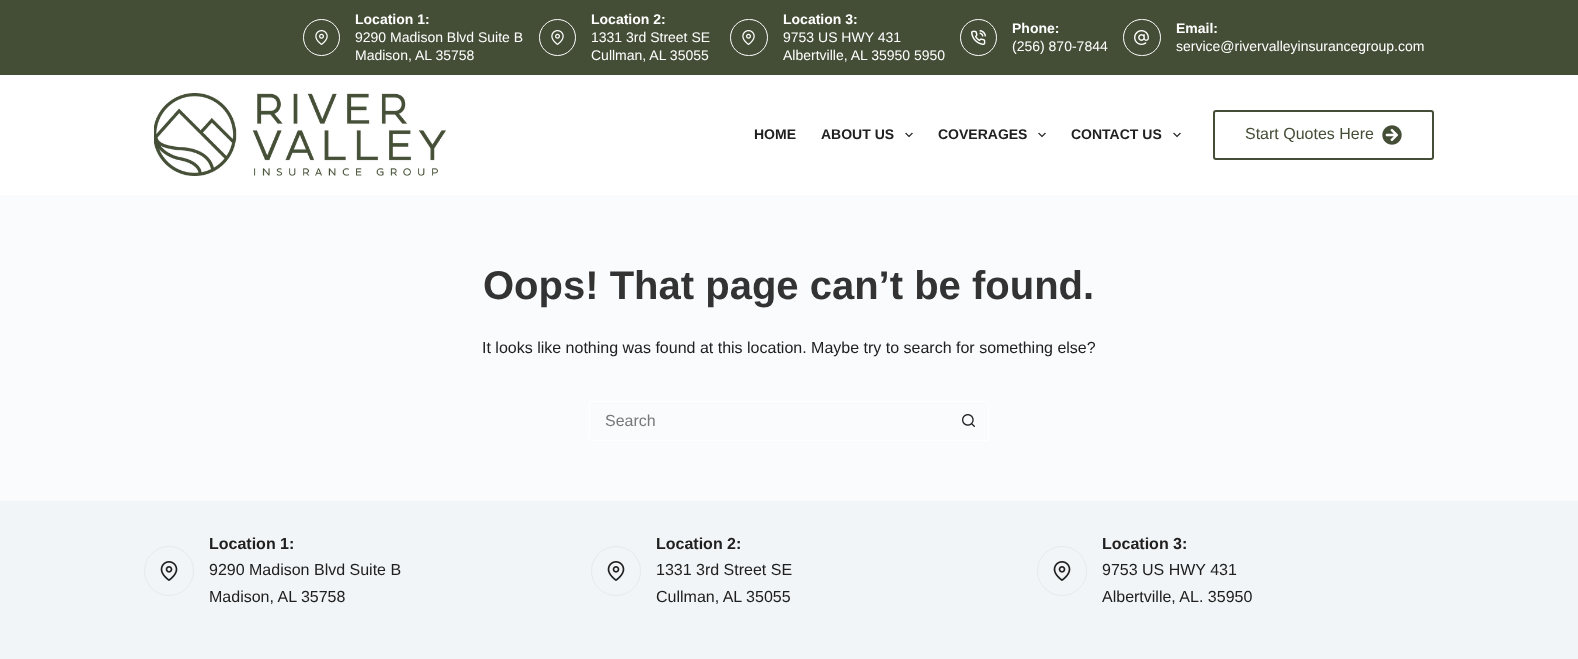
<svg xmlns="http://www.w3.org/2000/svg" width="1578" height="659">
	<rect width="100%" height="100%" fill="#FAFBFC" />
	<rect x="0" y="0" width="1578" height="75" fill="#444E36" />
	<circle cx="321.5" cy="37.5" r="18" fill="none" stroke="#FFFFFF" />
	<image x="315" y="30" width="13" height="15" href="assets/img1.png" />
	<text x="355" y="24" font-family="Liberation Sans" font-size="14" font-weight="700" fill="#FFFFFF">Location 1:</text>
	<g font-family="Liberation Sans" font-size="14" fill="#FFFFFF">
		<text x="355" y="42">9290 Madison Blvd Suite B</text>
		<text x="355" y="60">Madison, AL 35758</text>
	</g>
	<circle cx="557.5" cy="37.5" r="18" fill="none" stroke="#FFFFFF" />
	<image x="551" y="30" width="13" height="15" href="assets/img1.png" />
	<text x="591" y="24" font-family="Liberation Sans" font-size="14" font-weight="700" fill="#FFFFFF">Location 2:</text>
	<g font-family="Liberation Sans" font-size="14" fill="#FFFFFF">
		<text x="591" y="42">1331 3rd Street SE</text>
		<text x="591" y="60">Cullman, AL 35055</text>
	</g>
	<rect x="730.5" y="19.5" width="37" height="36" rx="18" fill="none" stroke="#FFFFFF" />
	<image x="742" y="30" width="13" height="15" href="assets/img1.png" />
	<text x="783" y="24" font-family="Liberation Sans" font-size="14" font-weight="700" fill="#FFFFFF">Location 3:</text>
	<g font-family="Liberation Sans" font-size="14" fill="#FFFFFF">
		<text x="783" y="42">9753 US HWY 431</text>
		<text x="783" y="60">Albertville, AL 35950 5950</text>
	</g>
	<circle cx="978.5" cy="37.5" r="18" fill="none" stroke="#FFFFFF" />
	<image x="971" y="30" width="15" height="15" href="assets/img2.png" />
	<text x="1012" y="33" font-family="Liberation Sans" font-size="14" font-weight="700" fill="#FFFFFF">Phone:</text>
	<text x="1012" y="51" font-family="Liberation Sans" font-size="14" fill="#FFFFFF">(256) 870-7844</text>
	<rect x="1123.5" y="19.5" width="37" height="36" rx="18" fill="none" stroke="#FFFFFF" />
	<image x="1134" y="30" width="15" height="15" href="assets/img3.png" />
	<text x="1176" y="33" font-family="Liberation Sans" font-size="14" font-weight="700" fill="#FFFFFF">Email:</text>
	<text x="1176" y="51" font-family="Liberation Sans" font-size="14" fill="#FFFFFF">service@rivervalleyinsurancegroup.com</text>
	<rect x="0" y="75" width="1578" height="120" fill="#FFFFFF" />
	<image x="154" y="93" width="292" height="83" href="assets/img4.png" />
	<g font-family="Liberation Sans" font-size="14" font-weight="700" fill="#202020">
		<text x="754" y="139">HOME</text>
		<text x="821" y="139">ABOUT US</text>
	</g>
	<image x="905" y="132" width="8" height="6" href="assets/img5.png" />
	<text x="938" y="139" font-family="Liberation Sans" font-size="14" font-weight="700" fill="#202020">COVERAGES</text>
	<image x="1038" y="132" width="8" height="6" href="assets/img5.png" />
	<text x="1071" y="139" font-family="Liberation Sans" font-size="14" font-weight="700" fill="#202020">CONTACT US</text>
	<image x="1173" y="132" width="8" height="6" href="assets/img5.png" />
	<rect x="1214" y="111" width="219" height="48" rx="2" fill="none" stroke="#444E36" stroke-width="2" />
	<text x="1245" y="139" font-family="Liberation Sans" font-size="16" fill="#444E36">Start Quotes Here</text>
	<image x="1382" y="125" width="20" height="20" href="assets/img6.png" />
	<text x="483" y="299" font-family="Liberation Sans" font-size="40" font-weight="700" fill="#333333">Oops! That page can’t be found.</text>
	<text x="482" y="353" font-family="Liberation Sans" font-size="16" fill="#202020">It looks like nothing was found at this location. Maybe try to search for something else?</text>
	<path d="M592 401H949V441H592C590 441 589 440 589 438V404C589 402 590 401 592 401ZM592 402H949V440H591C589 438 590 433 590 432V404L591 402Z" fill="#FFFFFF" fill-rule="evenodd" />
	<text x="605" y="426" font-family="Liberation Sans" font-size="16" fill="#787879">Search</text>
	<path d="M949 401H986C988 401 989 402 989 404V438C989 440 988 441 986 441H949ZM949 402H986C987 402 988 403 988 404V438C988 439 987 440 986 440H949Z" fill="#FFFFFF" fill-rule="evenodd" />
	<image x="962" y="414" width="13" height="13" href="assets/img7.png" />
	<rect x="0" y="501" width="1578" height="158" fill="#F2F5F7" />
	<circle cx="169" cy="571" r="24.5" fill="none" stroke="#E6EAEE" />
	<image x="160" y="561" width="18" height="20" href="assets/img8.png" />
	<text x="209" y="549" font-family="Liberation Sans" font-size="16" font-weight="700" fill="#202020">Location 1:</text>
	<g font-family="Liberation Sans" font-size="16" fill="#202020">
		<text x="209" y="575">9290 Madison Blvd Suite B</text>
		<text x="209" y="602">Madison, AL 35758</text>
	</g>
	<circle cx="616" cy="571" r="24.5" fill="none" stroke="#E6EAEE" />
	<image x="607" y="561" width="18" height="20" href="assets/img8.png" />
	<text x="656" y="549" font-family="Liberation Sans" font-size="16" font-weight="700" fill="#202020">Location 2:</text>
	<g font-family="Liberation Sans" font-size="16" fill="#202020">
		<text x="656" y="575">1331 3rd Street SE</text>
		<text x="656" y="602">Cullman, AL 35055</text>
	</g>
	<circle cx="1062" cy="571" r="24.5" fill="none" stroke="#E6EAEE" />
	<image x="1053" y="561" width="18" height="20" href="assets/img8.png" />
	<text x="1102" y="549" font-family="Liberation Sans" font-size="16" font-weight="700" fill="#202020">Location 3:</text>
	<g font-family="Liberation Sans" font-size="16" fill="#202020">
		<text x="1102" y="575">9753 US HWY 431</text>
		<text x="1102" y="602">Albertville, AL. 35950</text>
	</g>
</svg>
